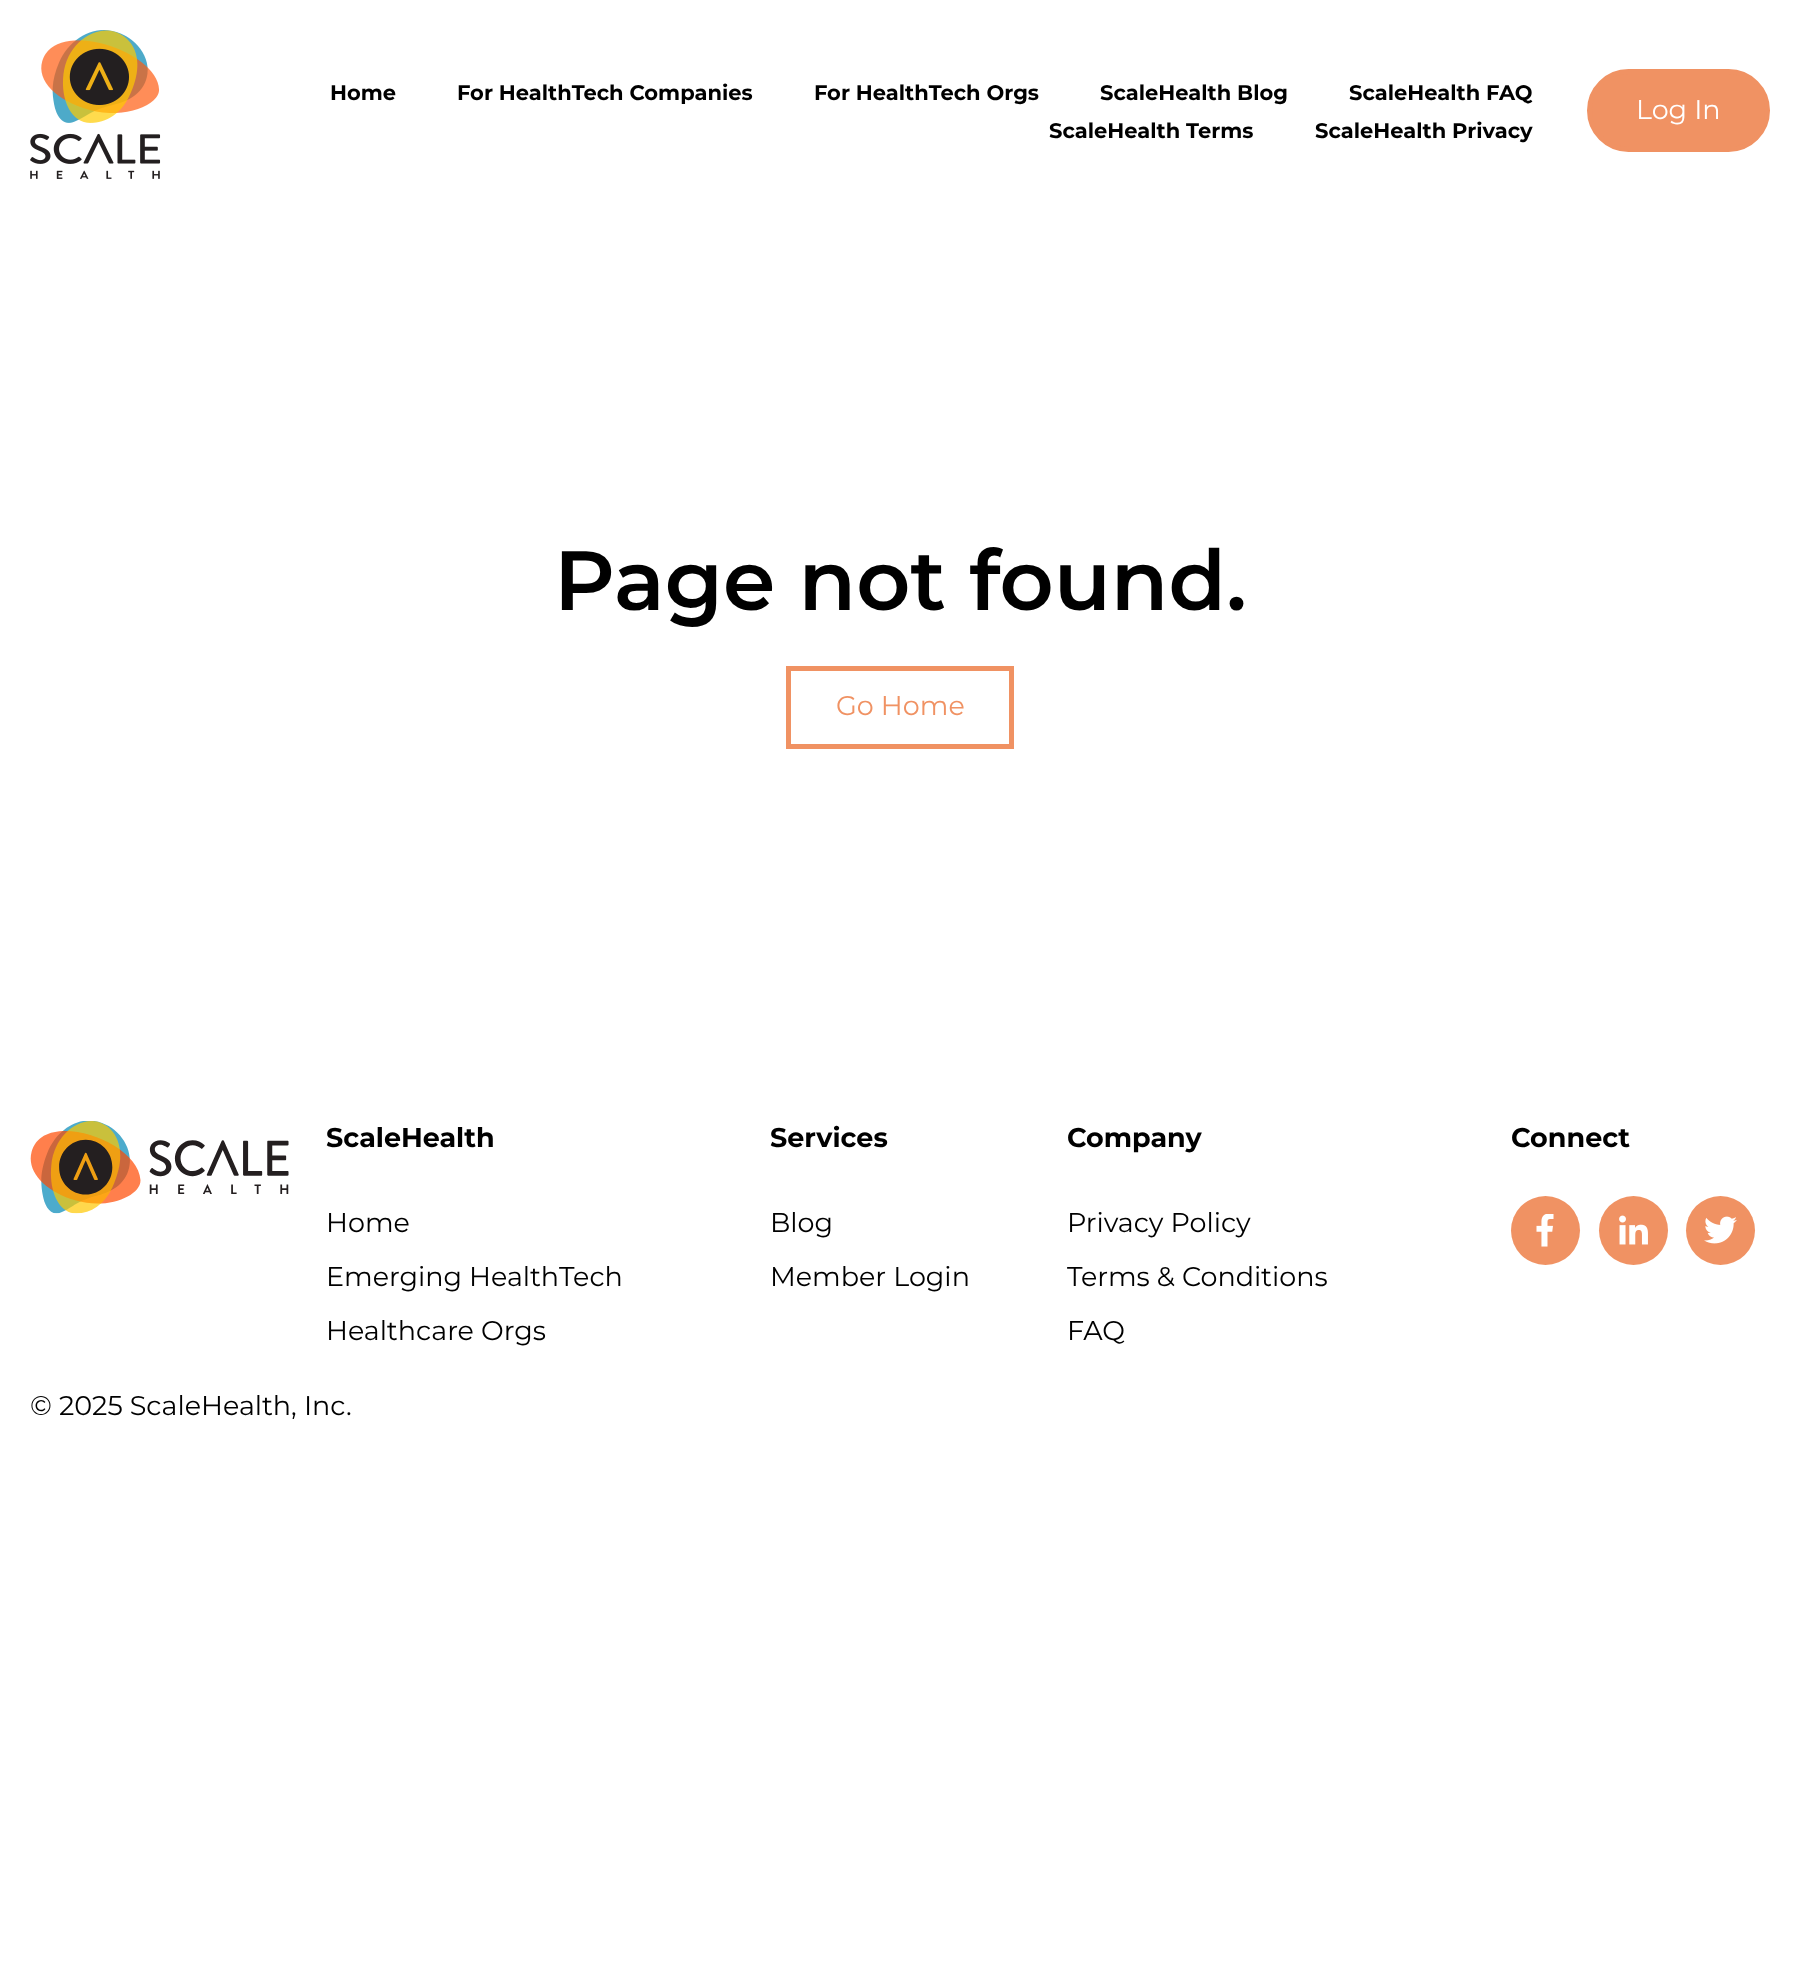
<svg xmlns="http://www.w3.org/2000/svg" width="1799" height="1977">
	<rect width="100%" height="100%" fill="#FFFFFF" />
	<image x="30" y="30" width="131" height="149" href="assets/img1.png" />
	<g font-family="Montserrat" font-size="21" font-weight="700" fill="#000000">
		<text x="330" y="100">Home</text>
		<text x="457" y="100">For HealthTech Companies</text>
		<text x="814" y="100">For HealthTech Orgs</text>
		<text x="1100" y="100">ScaleHealth Blog</text>
		<text x="1349" y="100">ScaleHealth FAQ</text>
		<text x="1049" y="138">ScaleHealth Terms</text>
		<text x="1315" y="138">ScaleHealth Privacy</text>
	</g>
	<rect x="1589.5" y="71.5" width="178" height="78" rx="39" fill="#F09263" stroke="#F09263" stroke-width="5" />
	<text x="1636" y="119" font-family="Montserrat" font-size="27" fill="#FFFFFF">Log In</text>
	<text x="554" y="610" font-family="Montserrat" font-size="84" font-weight="600" fill="#000000">Page not found.</text>
	<rect x="788.5" y="668.5" width="223" height="78" fill="none" stroke="#F09263" stroke-width="5" />
	<text x="836" y="715" font-family="Montserrat" font-size="27" fill="#F09263">Go Home</text>
	<image x="30" y="1121" width="259" height="93" href="assets/img2.png" />
	<text x="326" y="1147" font-family="Montserrat" font-size="27" font-weight="700" fill="#000000">ScaleHealth</text>
	<g font-family="Montserrat" font-size="27" fill="#000000">
		<text x="326" y="1232">Home</text>
		<text x="326" y="1286">Emerging HealthTech</text>
		<text x="326" y="1340">Healthcare Orgs</text>
	</g>
	<text x="770" y="1147" font-family="Montserrat" font-size="27" font-weight="700" fill="#000000">Services</text>
	<g font-family="Montserrat" font-size="27" fill="#000000">
		<text x="770" y="1232">Blog</text>
		<text x="770" y="1286">Member Login</text>
	</g>
	<text x="1067" y="1147" font-family="Montserrat" font-size="27" font-weight="700" fill="#000000">Company</text>
	<g font-family="Montserrat" font-size="27" fill="#000000">
		<text x="1067" y="1232">Privacy Policy</text>
		<text x="1067" y="1286">Terms &amp; Conditions</text>
		<text x="1067" y="1340">FAQ</text>
	</g>
	<text x="1511" y="1147" font-family="Montserrat" font-size="27" font-weight="700" fill="#000000">Connect</text>
	<circle cx="1545.5" cy="1230.5" r="34.5" fill="#F09263" />
	<image x="1536" y="1214" width="18" height="33" href="assets/img3.png" />
	<circle cx="1633.5" cy="1230.5" r="34.5" fill="#F09263" />
	<image x="1619" y="1215" width="29" height="30" href="assets/img4.png" />
	<circle cx="1720.5" cy="1230.5" r="34.5" fill="#F09263" />
	<image x="1704" y="1216" width="33" height="28" href="assets/img5.png" />
	<text x="30" y="1415" font-family="Montserrat" font-size="27" fill="#000000">© 2025 ScaleHealth, Inc.</text>
</svg>
